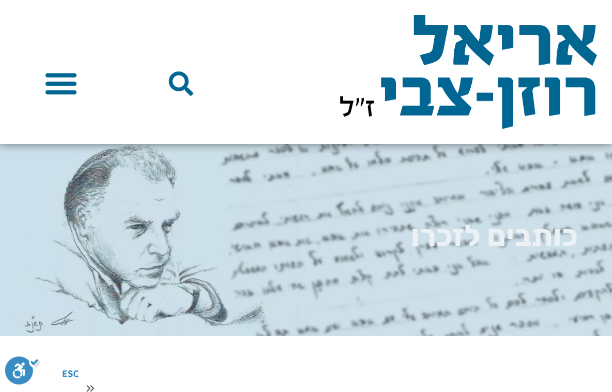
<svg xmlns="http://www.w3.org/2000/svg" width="612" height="392">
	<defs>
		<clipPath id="clip1"><rect x="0" y="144" width="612" height="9" /></clipPath>
	</defs>
	<rect width="100%" height="100%" fill="#FFFFFF" />
	<image x="0" y="144" width="612" height="192" href="assets/img4.png" />
	<g clip-path="url(#clip1)">
		<rect x="0" y="0" width="612" height="144" fill="#000000" fill-opacity="0.5" filter="blur(5px)" />
	</g>
	<image x="340" y="15" width="257" height="114" href="assets/img1.png" />
	<image x="168" y="71" width="26" height="25" href="assets/img2.png" />
	<image x="45" y="73" width="32" height="22" href="assets/img3.png" />
	<text x="578" y="246" font-family="Rubik" font-size="30" font-weight="700" direction="rtl" fill="#EBF1F4">כותבים לזכרו</text>
	<text x="86" y="393" font-family="Rubik" font-size="14" fill="#54595F">»</text>
	<text x="62" y="377" font-family="Assistant" font-size="10" font-weight="700" fill="#3A8DC2">ESC</text>
	<image x="5" y="356" width="35" height="29" href="assets/img5.png" />
</svg>
